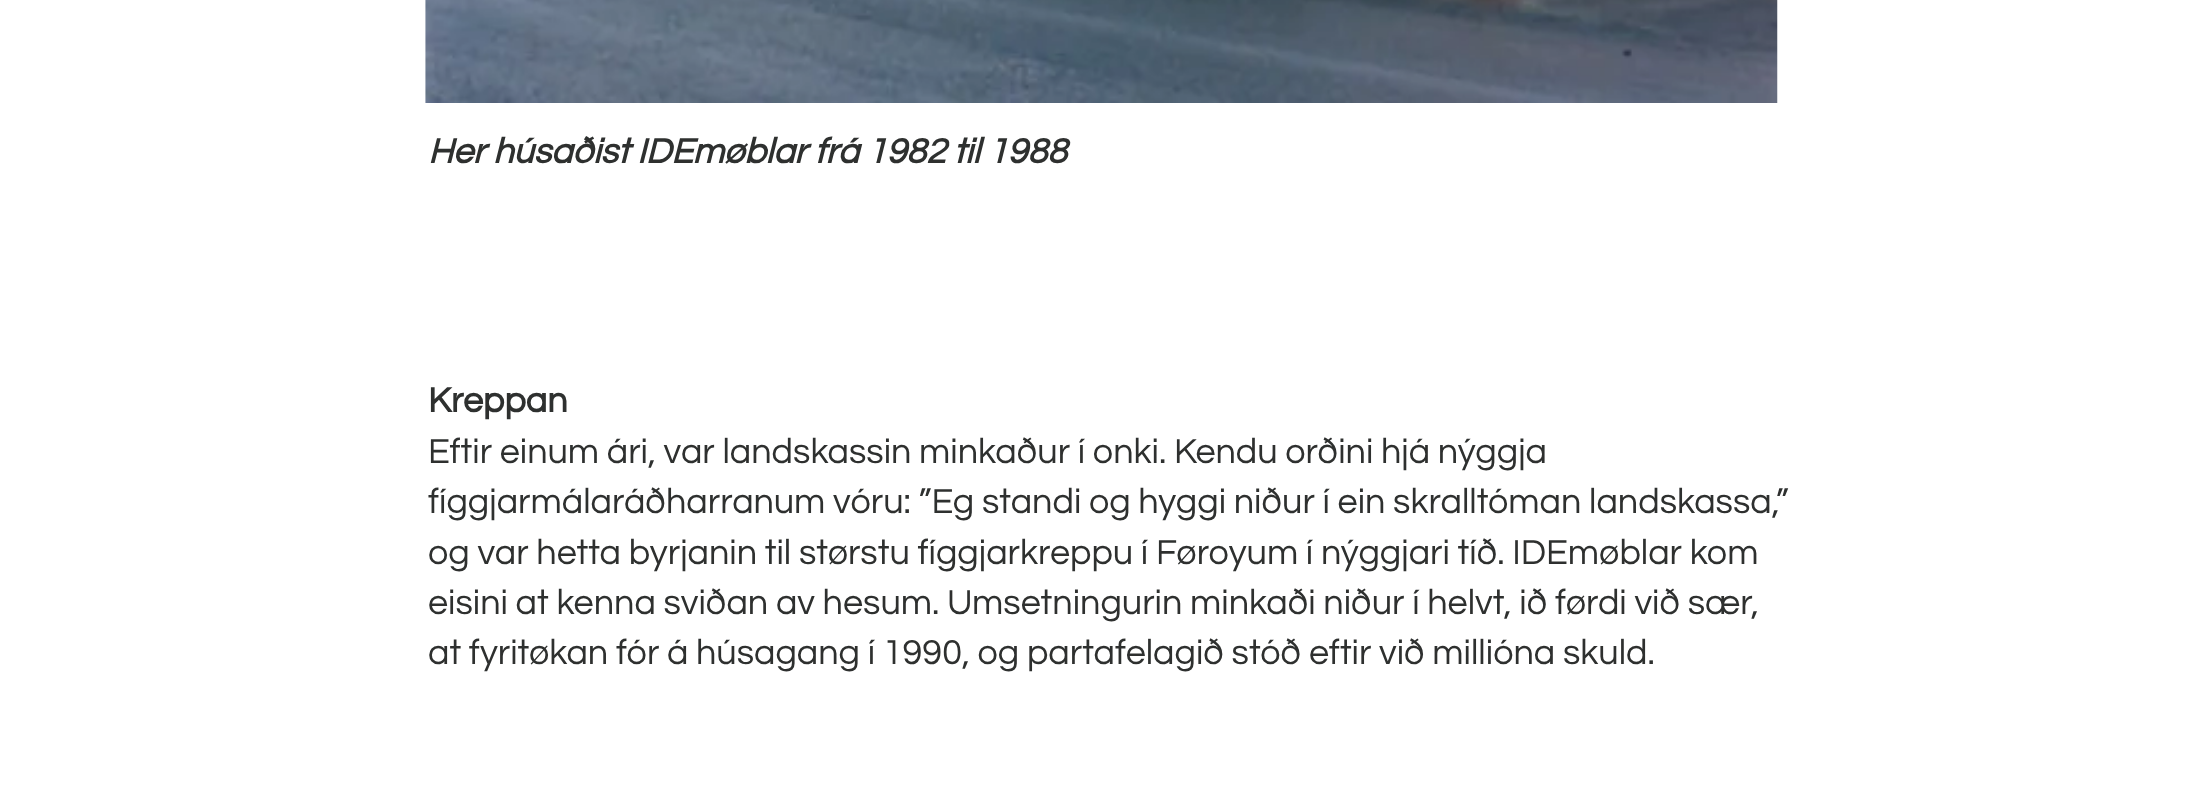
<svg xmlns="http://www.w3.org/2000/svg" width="2185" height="788">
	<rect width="100%" height="100%" fill="#FFFFFF" />
	<image x="425" y="0" width="1353" height="103" href="assets/img1.png" />
	<text x="428" y="163" font-family="Questrial" font-size="36" font-weight="700" font-style="italic" fill="#2E302F">Her húsaðist IDEmøblar frá 1982 til 1988</text>
	<text x="428" y="412" font-family="Questrial" font-size="36" font-weight="700" fill="#2E302F">Kreppan</text>
	<g font-family="Questrial" font-size="36" fill="#2E302F">
		<text x="428" y="463">Eftir einum ári, var landskassin minkaður í onki. Kendu orðini hjá nýggja</text>
		<text x="428" y="513">fíggjarmálaráðharranum vóru: ”Eg standi og hyggi niður í ein skralltóman landskassa,”</text>
		<text x="428" y="564">og var hetta byrjanin til størstu fíggjarkreppu í Føroyum í nýggjari tíð. IDEmøblar kom</text>
		<text x="428" y="614">eisini at kenna sviðan av hesum. Umsetningurin minkaði niður í helvt, ið førdi við sær,</text>
		<text x="428" y="664">at fyritøkan fór á húsagang í 1990, og partafelagið stóð eftir við millióna skuld.</text>
	</g>
</svg>
